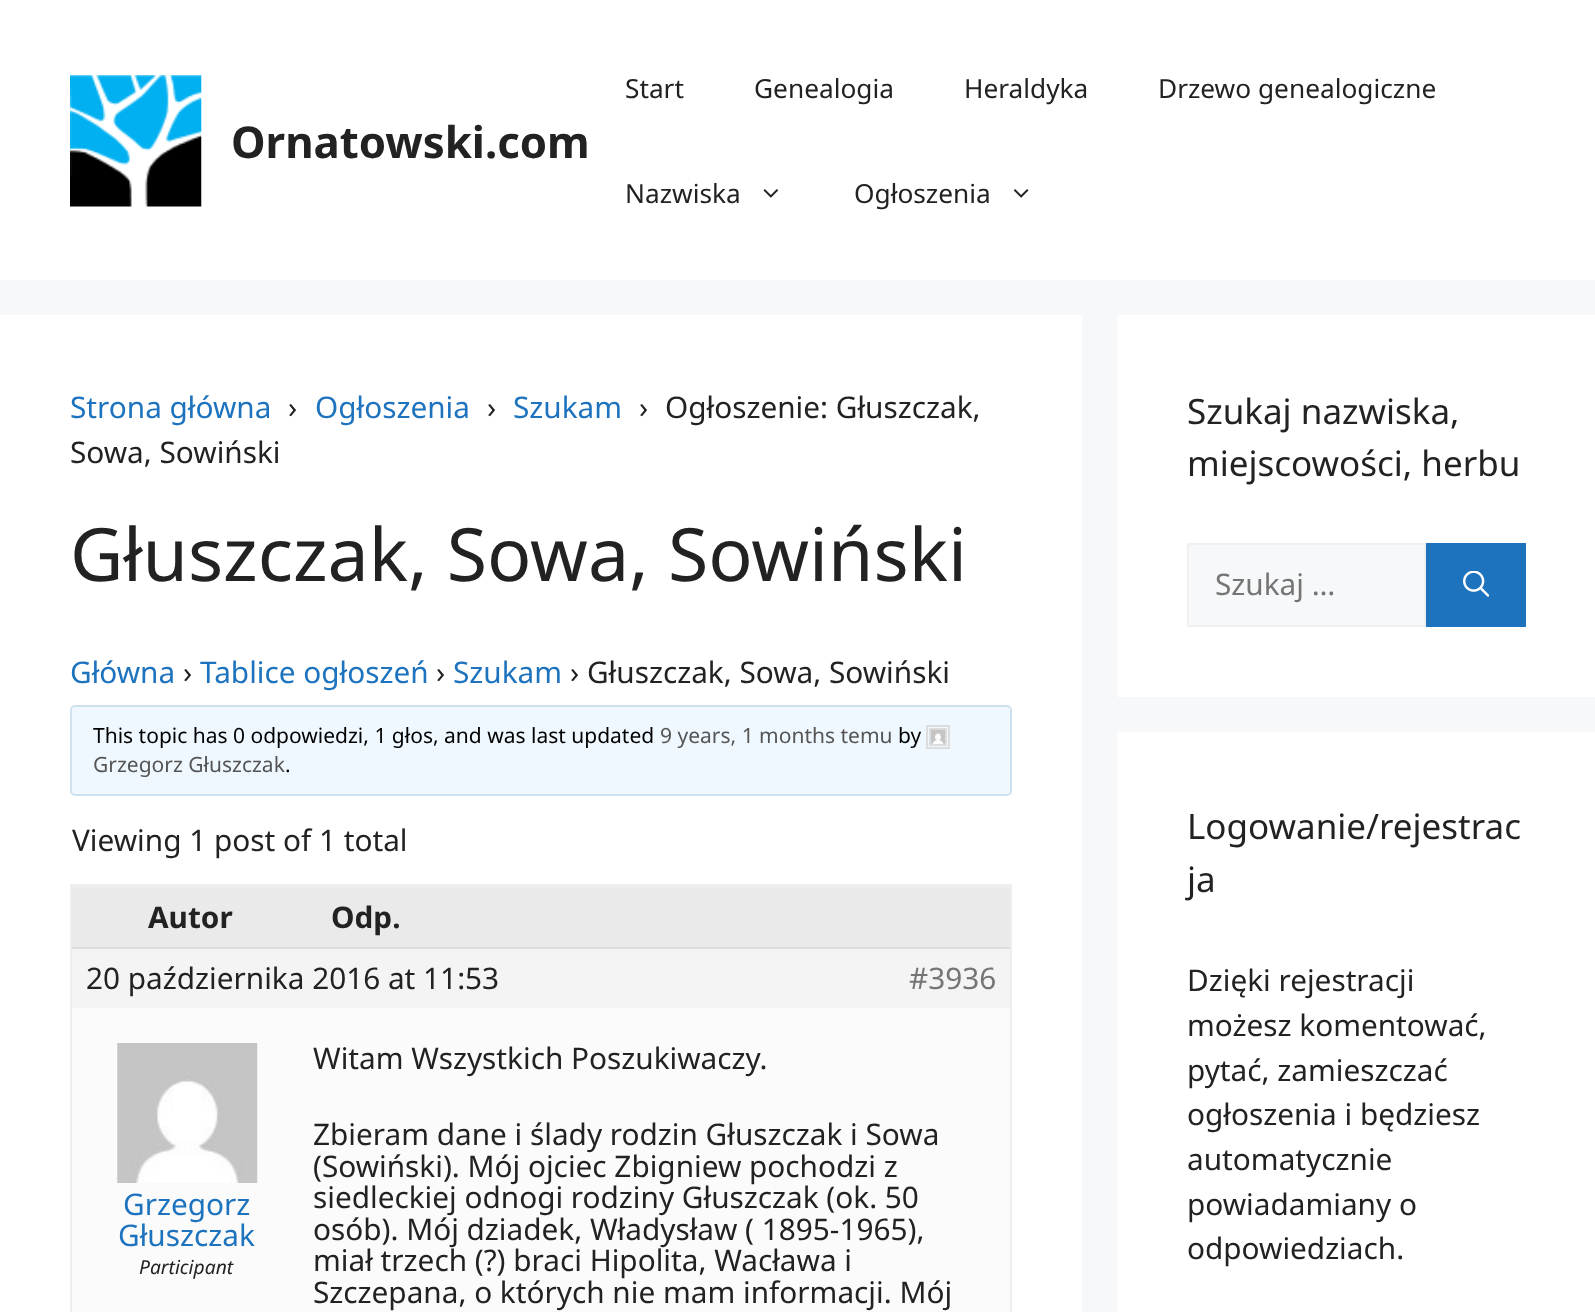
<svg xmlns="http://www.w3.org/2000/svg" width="1595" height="1312">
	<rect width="100%" height="100%" fill="#F7F8F9" />
	<rect x="0" y="0" width="1595" height="280" fill="#FFFFFF" />
	<image x="70" y="75" width="132" height="132" href="assets/img1.png" />
	<text x="231" y="158" font-family="Noto Sans" font-size="43.75" font-weight="700" fill="#222222">Ornatowski.com</text>
	<g font-family="Noto Sans" font-size="26.25" fill="#222222">
		<text x="625" y="98">Start</text>
		<text x="754" y="98">Genealogia</text>
		<text x="964" y="98">Heraldyka</text>
		<text x="1158" y="98">Drzewo genealogiczne</text>
		<text x="625" y="203">Nazwiska</text>
	</g>
	<image x="763" y="189" width="16" height="9" href="assets/img2.png" />
	<text x="854" y="203" font-family="Noto Sans" font-size="26.25" fill="#222222">Ogłoszenia</text>
	<image x="1013" y="189" width="16" height="9" href="assets/img3.png" />
	<rect x="0" y="315" width="1082" height="997" fill="#FFFFFF" />
	<text x="70" y="418" font-family="Noto Sans" font-size="29.75" fill="#1E73BE">Strona główna</text>
	<text x="288" y="418" font-family="Noto Sans" font-size="29.75" fill="#222222">›</text>
	<text x="315" y="418" font-family="Noto Sans" font-size="29.75" fill="#1E73BE">Ogłoszenia</text>
	<text x="487" y="418" font-family="Noto Sans" font-size="29.75" fill="#222222">›</text>
	<text x="513" y="418" font-family="Noto Sans" font-size="29.75" fill="#1E73BE">Szukam</text>
	<g font-family="Noto Sans" font-size="29.75" fill="#222222">
		<text x="639" y="418">›</text>
		<text x="665" y="418">Ogłoszenie: Głuszczak,</text>
		<text x="70" y="463">Sowa, Sowiński</text>
	</g>
	<text x="70" y="581" font-family="Noto Sans" font-size="73.5" fill="#222222">Głuszczak, Sowa, Sowiński</text>
	<text x="70" y="683" font-family="Noto Sans" font-size="29.75" fill="#1E73BE">Główna</text>
	<text x="183" y="683" font-family="Noto Sans" font-size="29.75" fill="#222222">›</text>
	<text x="200" y="683" font-family="Noto Sans" font-size="29.75" fill="#1E73BE">Tablice ogłoszeń</text>
	<text x="436" y="683" font-family="Noto Sans" font-size="29.75" fill="#222222">›</text>
	<text x="453" y="683" font-family="Noto Sans" font-size="29.75" fill="#1E73BE">Szukam</text>
	<text x="570" y="683" font-family="Noto Sans" font-size="29.75" fill="#222222">› Głuszczak, Sowa, Sowiński</text>
	<rect x="71" y="706" width="940" height="89" rx="4" fill="#F0F8FF" stroke="#CEE1EF" stroke-width="2" />
	<text x="93" y="743" font-family="Noto Sans" font-size="21" fill="#000000">This topic has 0 odpowiedzi, 1 głos, and was last updated</text>
	<text x="660" y="743" font-family="Noto Sans" font-size="21" fill="#555555">9 years, 1 months temu</text>
	<text x="898" y="743" font-family="Noto Sans" font-size="21" fill="#000000">by</text>
	<rect x="927" y="726" width="22" height="22" fill="none" stroke="#DDDDDD" stroke-width="2" />
	<rect x="930" y="729" width="16" height="16" fill="none" stroke="#DDDDDD" stroke-width="2" />
	<image x="931" y="729" width="14" height="15" href="assets/img4.png" />
	<text x="93" y="772" font-family="Noto Sans" font-size="21" fill="#555555">Grzegorz Głuszczak</text>
	<text x="285" y="772" font-family="Noto Sans" font-size="21" fill="#000000">.</text>
	<text x="72" y="851" font-family="Noto Sans" font-size="29.75" fill="#222222">Viewing 1 post of 1 total</text>
	<rect x="71" y="885" width="940" height="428" fill="none" stroke="#EEEEEE" stroke-width="2" />
	<rect x="72" y="888" width="938" height="59" fill="#EAEAEA" />
	<rect x="72" y="886" width="938" height="2" fill="#EEEEEE" />
	<g font-family="Noto Sans" font-size="29.75" font-weight="700" fill="#222222">
		<text x="148" y="928">Autor</text>
		<text x="331" y="928">Odp.</text>
	</g>
	<rect x="72" y="949" width="938" height="59" fill="#F4F4F4" />
	<rect x="72" y="947" width="938" height="2" fill="#DDDDDD" />
	<text x="86" y="989" font-family="Noto Sans" font-size="29.75" fill="#222222">20 października 2016 at 11:53</text>
	<text x="909" y="989" font-family="Noto Sans" font-size="29.75" fill="#757575">#3936</text>
	<rect x="72" y="1008" width="938" height="304" fill="#FBFBFB" />
	<image x="117" y="1043" width="141" height="140" href="assets/img5.png" />
	<g font-family="Noto Sans" font-size="29.75" fill="#1E73BE">
		<text x="123" y="1215">Grzegorz</text>
		<text x="118" y="1246">Głuszczak</text>
	</g>
	<text x="139" y="1274" font-family="Noto Sans" font-size="19.25" font-style="italic" fill="#222222">Participant</text>
	<g font-family="Noto Sans" font-size="29.75" fill="#222222">
		<text x="313" y="1069">Witam Wszystkich Poszukiwaczy.</text>
		<text x="313" y="1145">Zbieram dane i ślady rodzin Głuszczak i Sowa</text>
		<text x="313" y="1177">(Sowiński). Mój ojciec Zbigniew pochodzi z</text>
		<text x="313" y="1208">siedleckiej odnogi rodziny Głuszczak (ok. 50</text>
		<text x="313" y="1240">osób). Mój dziadek, Władysław ( 1895-1965),</text>
		<text x="313" y="1271">miał trzech (?) braci Hipolita, Wacława i</text>
		<text x="313" y="1303">Szczepana, o których nie mam informacji. Mój</text>
	</g>
	<rect x="1117" y="315" width="478" height="382" fill="#FFFFFF" />
	<g font-family="Noto Sans" font-size="35" fill="#222222">
		<text x="1187" y="424">Szukaj nazwiska,</text>
		<text x="1187" y="476">miejscowości, herbu</text>
	</g>
	<rect x="1188" y="544" width="237" height="82" fill="#F7F8F9" stroke="#F0F0F0" stroke-width="2" />
	<text x="1215" y="595" font-family="Noto Sans" font-size="29.75" fill="#757575">Szukaj …</text>
	<rect x="1426" y="543" width="100" height="84" fill="#1E73BE" />
	<image x="1463" y="571" width="26" height="26" href="assets/img6.png" />
	<rect x="1117" y="732" width="478" height="580" fill="#FFFFFF" />
	<g font-family="Noto Sans" font-size="35" fill="#222222">
		<text x="1187" y="839">Logowanie/rejestrac</text>
		<text x="1187" y="892">ja</text>
	</g>
	<g font-family="Noto Sans" font-size="29.75" fill="#222222">
		<text x="1187" y="991">Dzięki rejestracji</text>
		<text x="1187" y="1036">możesz komentować,</text>
		<text x="1187" y="1081">pytać, zamieszczać</text>
		<text x="1187" y="1125">ogłoszenia i będziesz</text>
		<text x="1187" y="1170">automatycznie</text>
		<text x="1187" y="1215">powiadamiany o</text>
		<text x="1187" y="1259">odpowiedziach.</text>
	</g>
</svg>
